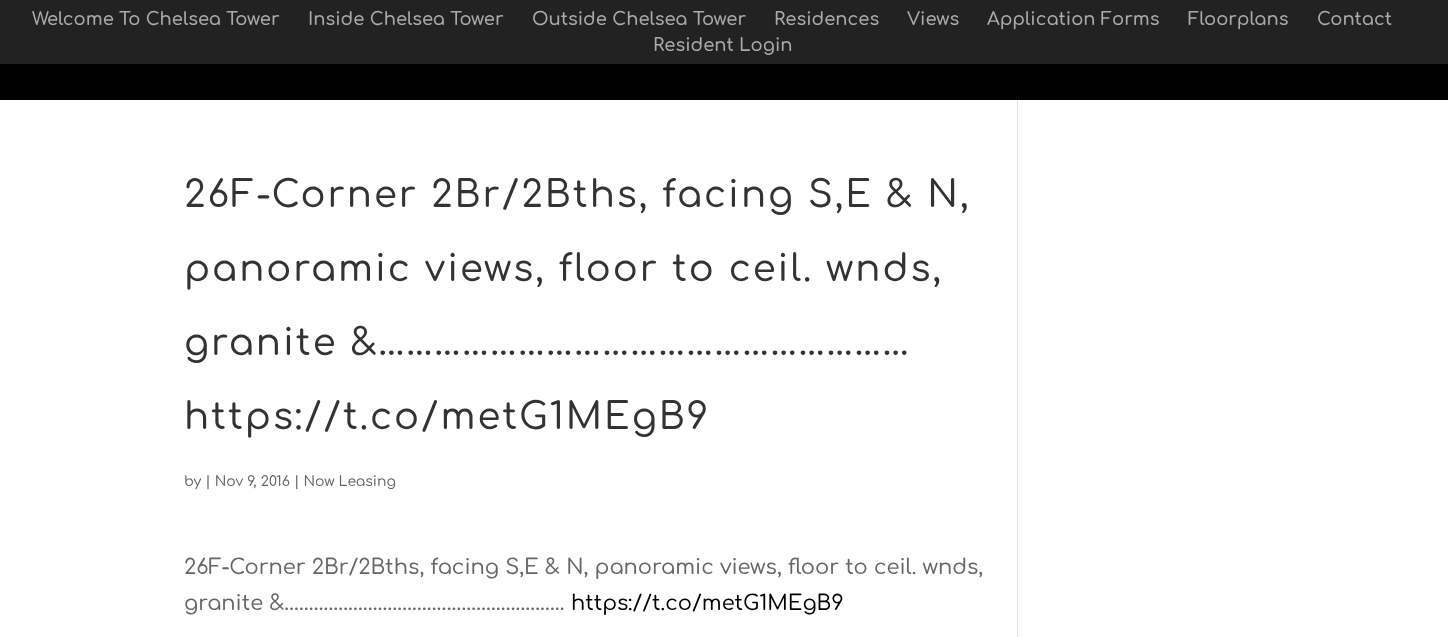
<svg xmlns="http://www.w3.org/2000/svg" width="1448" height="637">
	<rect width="100%" height="100%" fill="#000000" />
	<rect x="0" y="0" width="1448" height="64" fill="#222222" />
	<g font-family="Comfortaa" font-size="18" font-weight="600" fill="#AAAAAA">
		<text x="32" y="25">Welcome To Chelsea Tower</text>
		<text x="308" y="25">Inside Chelsea Tower</text>
		<text x="532" y="25">Outside Chelsea Tower</text>
		<text x="774" y="25">Residences</text>
		<text x="907" y="25">Views</text>
		<text x="987" y="25">Application Forms</text>
		<text x="1188" y="25">Floorplans</text>
		<text x="1317" y="25">Contact</text>
		<text x="653" y="51">Resident Login</text>
	</g>
	<rect x="0" y="100" width="1448" height="537" fill="#FFFFFF" />
	<g font-family="Comfortaa" font-size="37" font-weight="500" letter-spacing="2" fill="#333333">
		<text x="184" y="207">26F-Corner 2Br/2Bths, facing S,E &amp; N,</text>
		<text x="184" y="281">panoramic views, floor to ceil. wnds,</text>
		<text x="184" y="355">granite &amp;…………………………………………………</text>
		<text x="184" y="429">https://t.co/metG1MEgB9</text>
	</g>
	<text x="184" y="486" font-family="Comfortaa" font-size="14" font-weight="500" fill="#666666">by | Nov 9, 2016 | Now Leasing</text>
	<g font-family="Comfortaa" font-size="21" font-weight="500" fill="#666666">
		<text x="184" y="574">26F-Corner 2Br/2Bths, facing S,E &amp; N, panoramic views, floor to ceil. wnds,</text>
		<text x="184" y="610">granite &amp;…………………………………………………</text>
	</g>
	<text x="571" y="610" font-family="Comfortaa" font-size="21" font-weight="500" fill="#000000">https://t.co/metG1MEgB9</text>
	<rect x="1017" y="100" width="1" height="537" fill="#E2E2E2" />
</svg>
